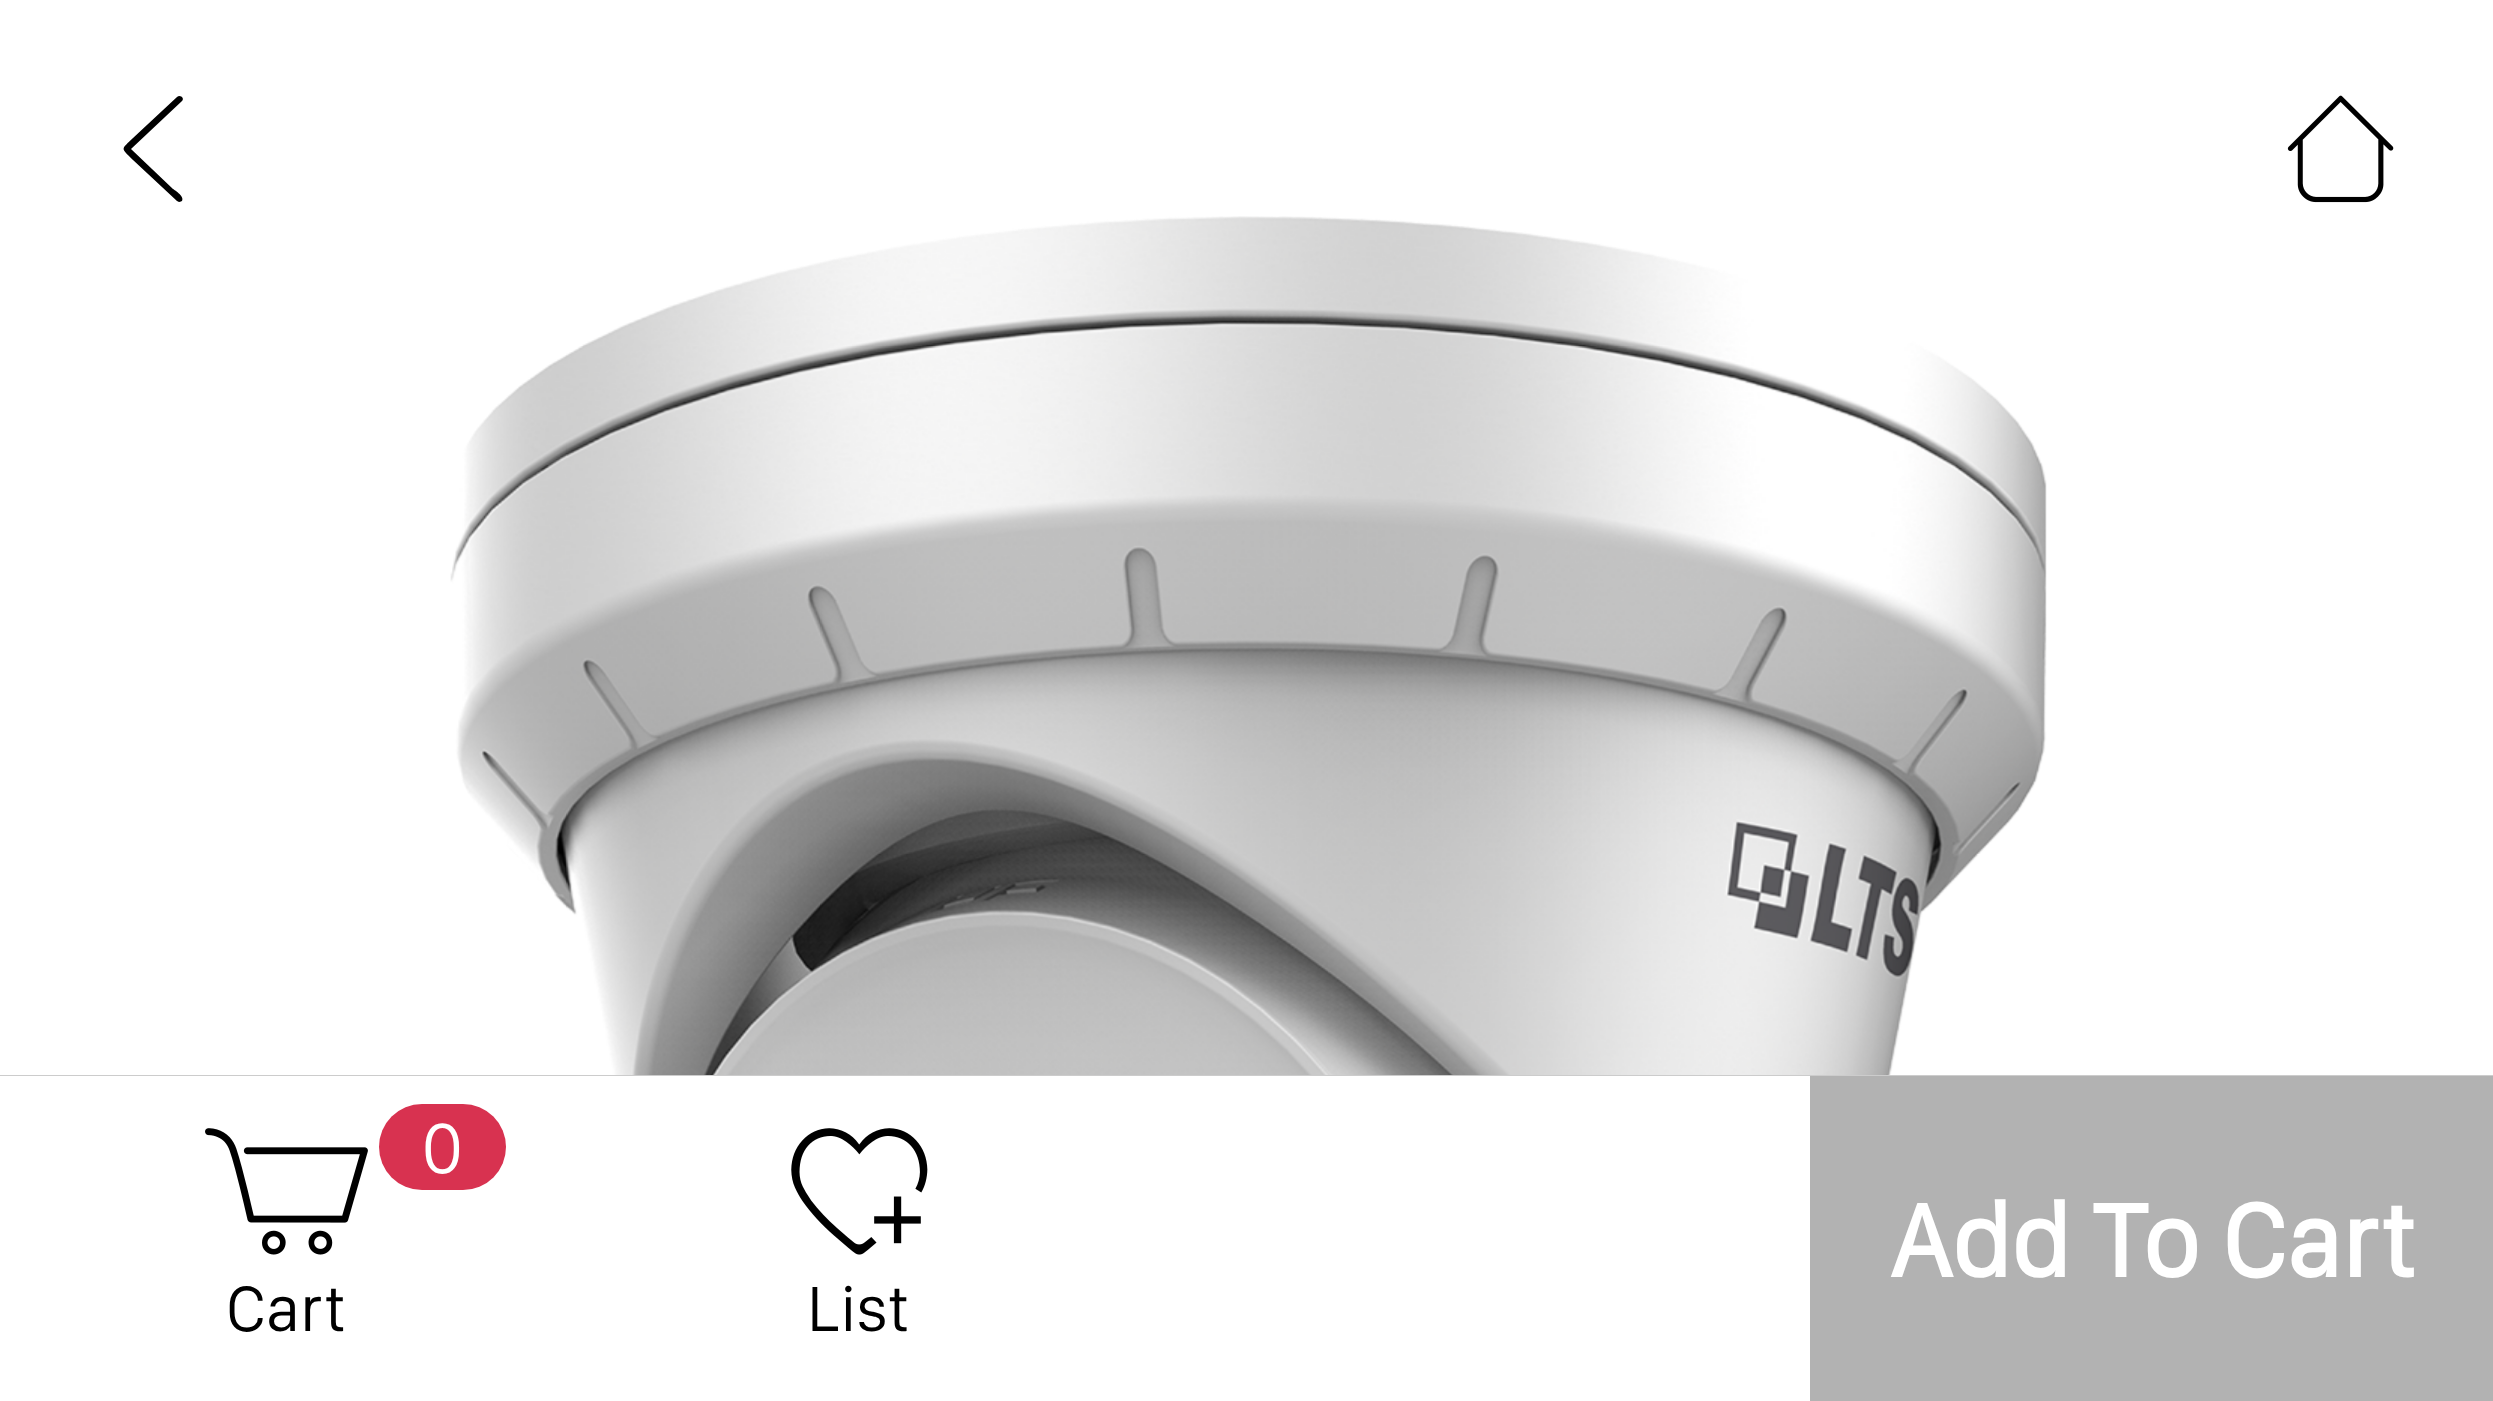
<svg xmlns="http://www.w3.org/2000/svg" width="2493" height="1401">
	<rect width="100%" height="100%" fill="#FFFFFF" />
	<path d="M179 202L177 201L133 160C120 147 121 150 133 138L177 97C180 94 185 98 182 101L131 149L173 189C173 189 185 196 182 201C181 201 181 202 179 202Z" fill="#000000" />
	<image x="2287" y="95" width="107" height="108" href="assets/img1.png" />
	<image x="450" y="216" width="1597" height="859" href="assets/img2.png" />
	<rect x="0" y="1075" width="2493" height="1" fill="#CCCCCC" />
	<image x="205" y="1128" width="163" height="127" href="assets/img3.png" />
	<rect x="379" y="1104" width="127" height="86" rx="43" fill="#D83250" />
	<text x="422" y="1173" font-family="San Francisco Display" font-size="73" fill="#FFFFFF">0</text>
	<text x="226" y="1331" font-family="San Francisco Display" font-size="66" fill="#000000">Cart</text>
	<image x="791" y="1128" width="137" height="127" href="assets/img4.png" />
	<text x="807" y="1331" font-family="San Francisco Display" font-size="66" fill="#000000">List</text>
	<rect x="1810" y="1076" width="683" height="325" fill="#B2B2B2" />
	<text x="1890" y="1277" word-spacing="1" font-family="San Francisco Display" font-size="106.5" font-weight="700" fill="#FFFFFF">Add To Cart</text>
</svg>
